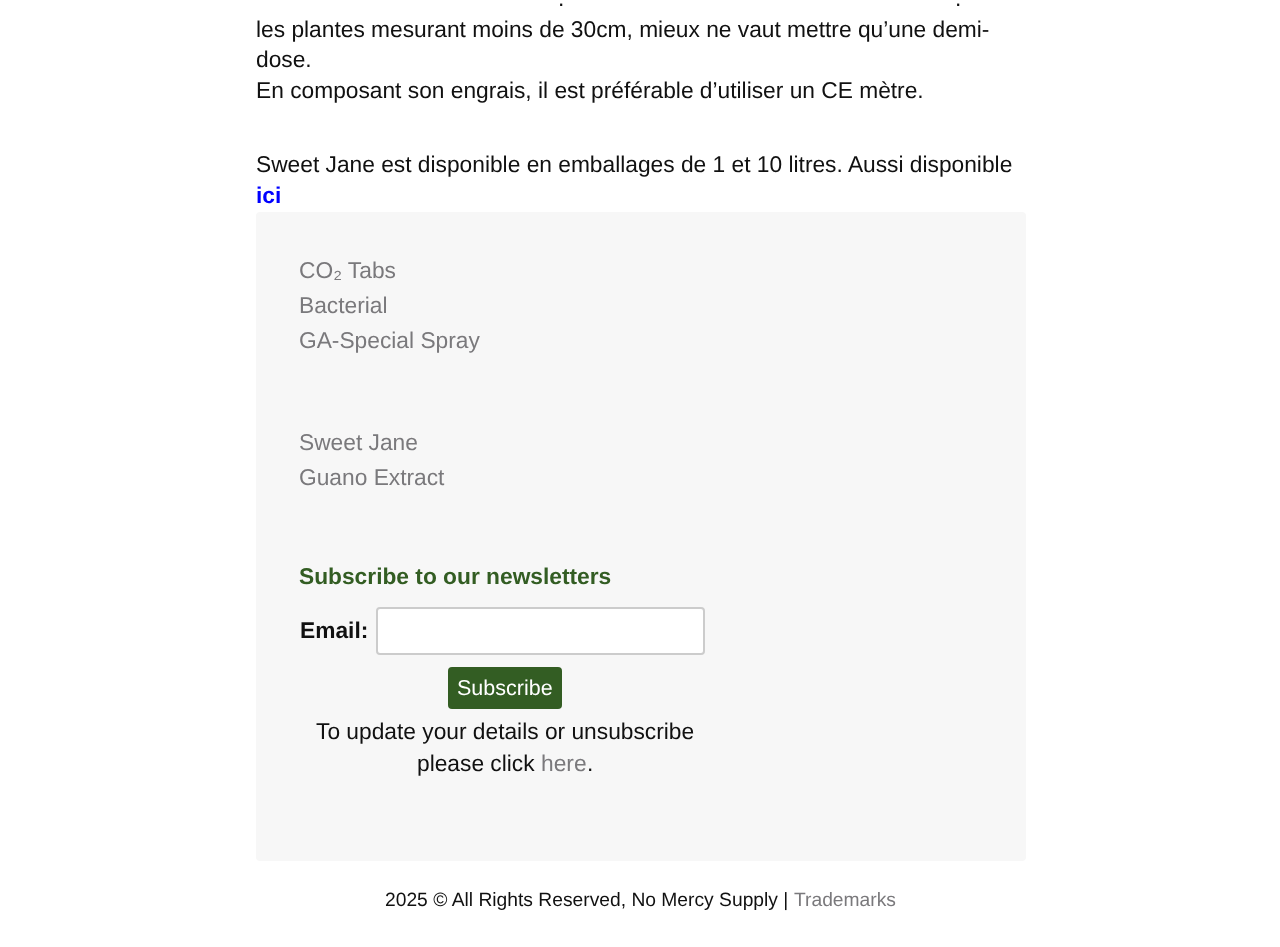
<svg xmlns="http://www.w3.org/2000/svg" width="1280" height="947">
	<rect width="100%" height="100%" fill="#FFFFFF" />
	<g font-family="Liberation Sans" font-size="22.75" fill="#111111">
		<text x="558" y="6">.</text>
		<text x="955" y="6">.</text>
		<text x="256" y="37">les plantes mesurant moins de 30cm, mieux ne vaut mettre qu’une demi-</text>
		<text x="256" y="67">dose.</text>
		<text x="256" y="98">En composant son engrais, il est préférable d’utiliser un CE mètre.</text>
		<text x="256" y="172">Sweet Jane est disponible en emballages de 1 et 10 litres. Aussi disponible</text>
	</g>
	<text x="256" y="203" font-family="Liberation Sans" font-size="22.75" font-weight="700" fill="#0000FF">ici</text>
	<rect x="256" y="212" width="770" height="649" rx="4" fill="#F7F7F7" />
	<g font-family="Liberation Sans" font-size="22.75" fill="#7A797C">
		<text x="299" y="278">CO₂ Tabs</text>
		<text x="299" y="313">Bacterial</text>
		<text x="299" y="348">GA-Special Spray</text>
		<text x="299" y="450">Sweet Jane</text>
		<text x="299" y="485">Guano Extract</text>
	</g>
	<text x="299" y="584" font-family="Liberation Sans" font-size="22.75" font-weight="700" fill="#335D23">Subscribe to our newsletters</text>
	<text x="300" y="638" font-family="Liberation Sans" font-size="22.75" font-weight="700" fill="#111111">Email:</text>
	<rect x="377" y="608" width="327" height="46" rx="3" fill="#FFFFFF" stroke="#CCCCCC" stroke-width="2" />
	<rect x="448" y="667" width="114" height="42" rx="4" fill="#335D23" />
	<text x="457" y="695" font-family="Liberation Sans" font-size="21.5" fill="#FFFFFF">Subscribe</text>
	<g font-family="Liberation Sans" font-size="22.75" fill="#111111">
		<text x="316" y="739">To update your details or unsubscribe</text>
		<text x="417" y="771">please click</text>
	</g>
	<text x="541" y="771" font-family="Liberation Sans" font-size="22.75" fill="#7A797C">here</text>
	<text x="587" y="771" font-family="Liberation Sans" font-size="22.75" fill="#111111">.</text>
	<text x="385" y="906" font-family="Liberation Sans" font-size="19.25" fill="#111111">2025 © All Rights Reserved, No Mercy Supply |</text>
	<text x="794" y="906" font-family="Liberation Sans" font-size="19.25" fill="#7A797C">Trademarks</text>
</svg>
